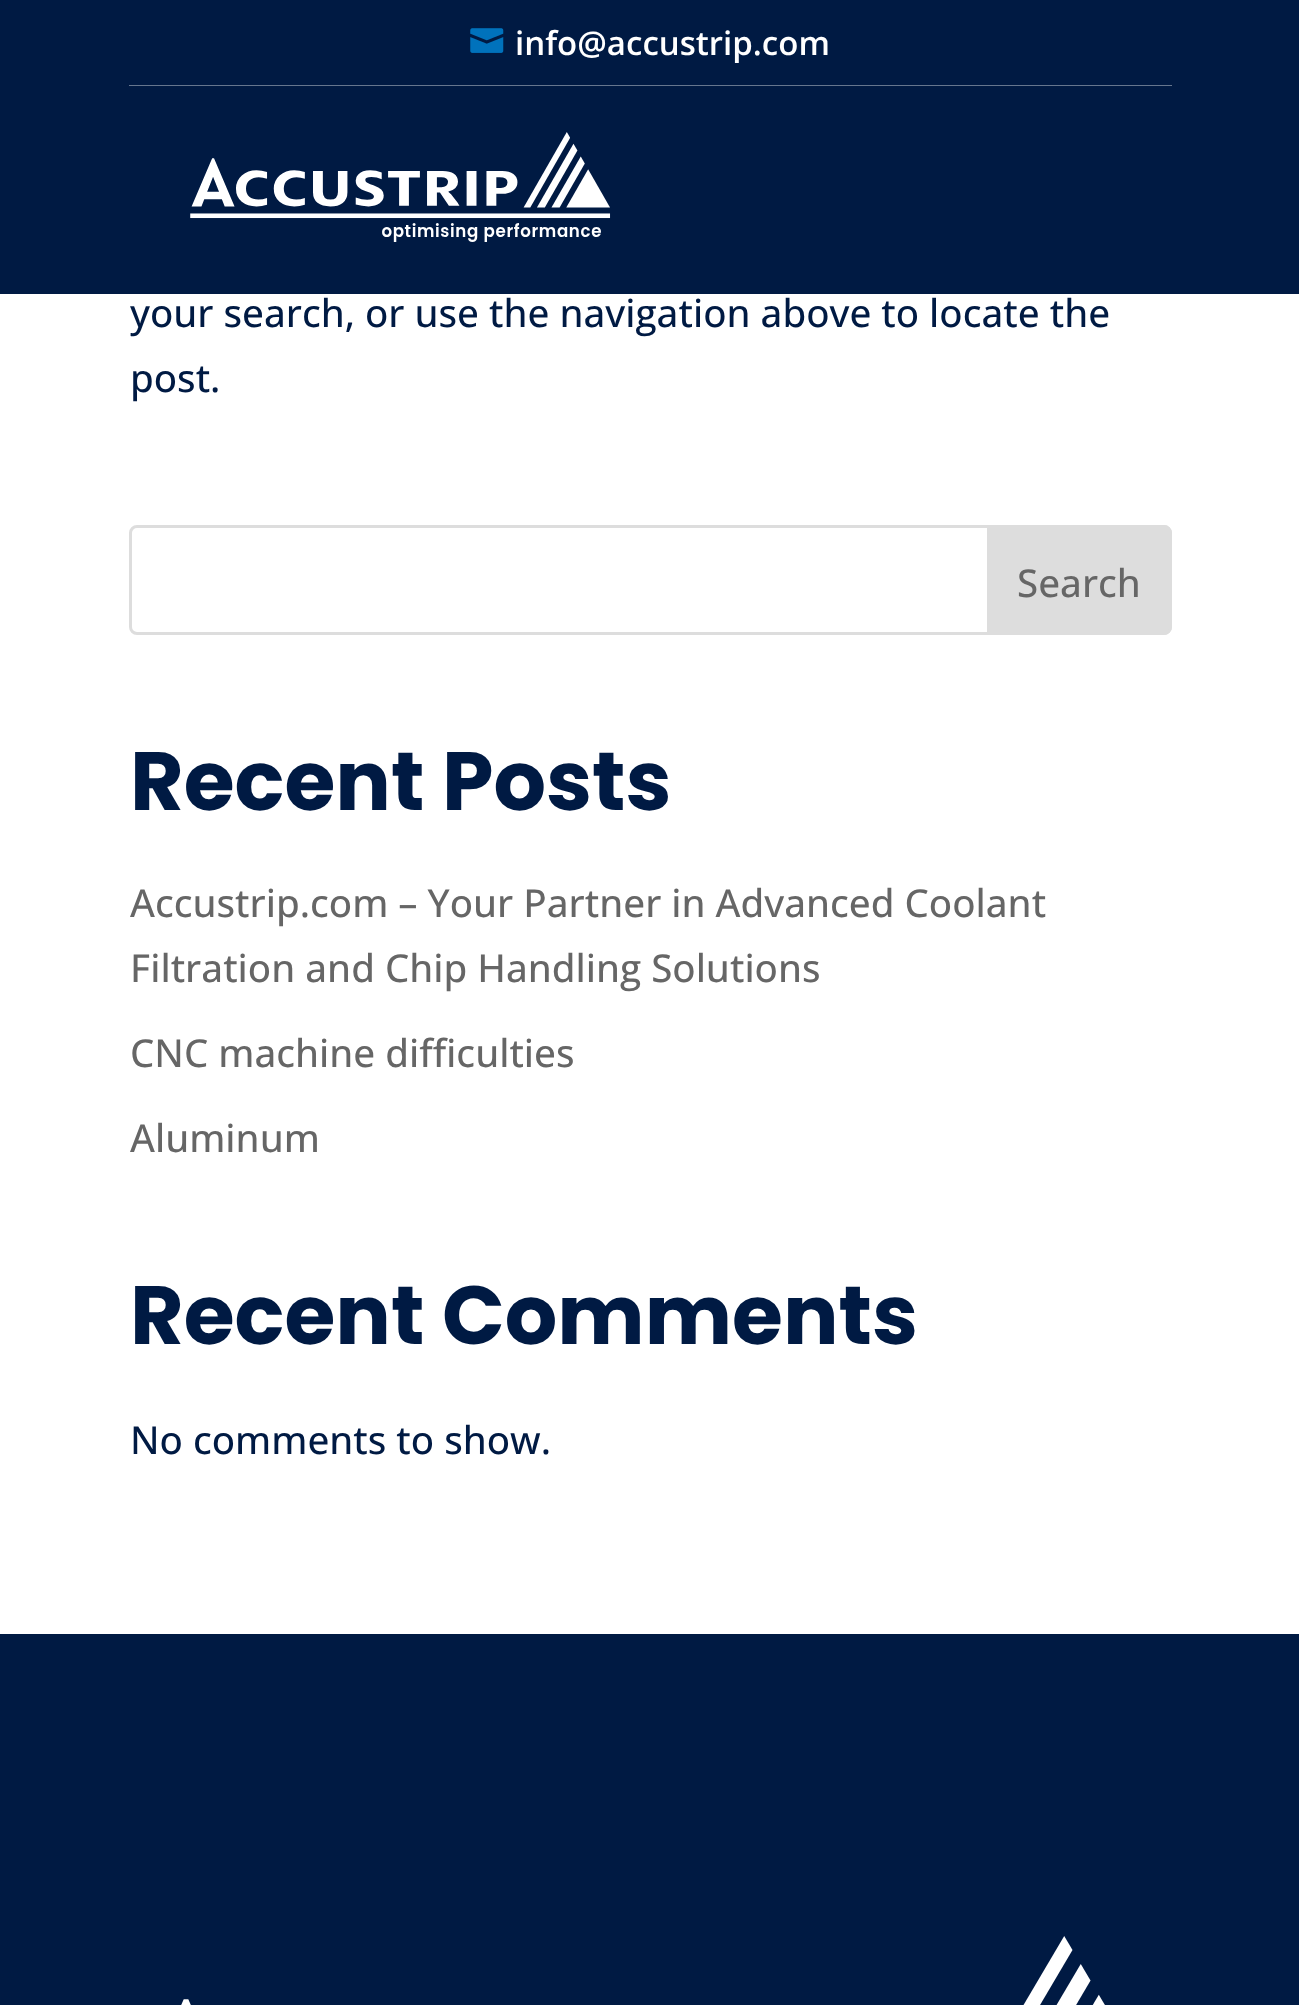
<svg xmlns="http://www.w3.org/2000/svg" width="1299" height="2005">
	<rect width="100%" height="100%" fill="#FFFFFF" />
	<rect x="0" y="0" width="1299" height="294" fill="#001A43" />
	<rect x="129" y="85" width="1043" height="1" fill="#66768E" />
	<image x="190" y="132" width="421" height="110" href="assets/img1.png" />
	<image x="470" y="28" width="34" height="25" href="assets/img2.png" />
	<text x="515" y="55" font-family="Open Sans" font-size="33" font-weight="600" fill="#FFFFFF">info@accustrip.com</text>
	<g font-family="Open Sans" font-size="38.5" font-weight="500" fill="#001A43">
		<text x="130" y="327">your search, or use the navigation above to locate the</text>
		<text x="130" y="392">post.</text>
	</g>
	<rect x="130.5" y="526.5" width="1040" height="107" rx="6.5" fill="none" stroke="#DDDDDD" stroke-width="3" />
	<path d="M988.5 526.5H1164C1167.5 526.5 1170.5 529.5 1170.5 533V627C1170.5 630.5 1167.5 633.5 1164 633.5H988.5Z" fill="#DDDDDD" stroke="#DDDDDD" stroke-width="3" />
	<text x="1017" y="597" font-family="Open Sans" font-size="38.5" font-weight="500" fill="#666666">Search</text>
	<text x="130" y="810" font-family="Poppins" font-size="82.5" font-weight="700" fill="#001A43">Recent Posts</text>
	<g font-family="Open Sans" font-size="38.5" font-weight="500" fill="#666666">
		<text x="130" y="917">Accustrip.com – Your Partner in Advanced Coolant</text>
		<text x="130" y="982">Filtration and Chip Handling Solutions</text>
		<text x="130" y="1067">CNC machine difficulties</text>
		<text x="130" y="1152">Aluminum</text>
	</g>
	<text x="130" y="1344" font-family="Poppins" font-size="82.5" font-weight="700" fill="#001A43">Recent Comments</text>
	<text x="130" y="1454" font-family="Open Sans" font-size="38.5" font-weight="500" fill="#001A43">No comments to show.</text>
	<rect x="0" y="1634" width="1299" height="371" fill="#001A43" />
	<image x="181" y="1936" width="924" height="69" href="assets/img3.png" />
</svg>
